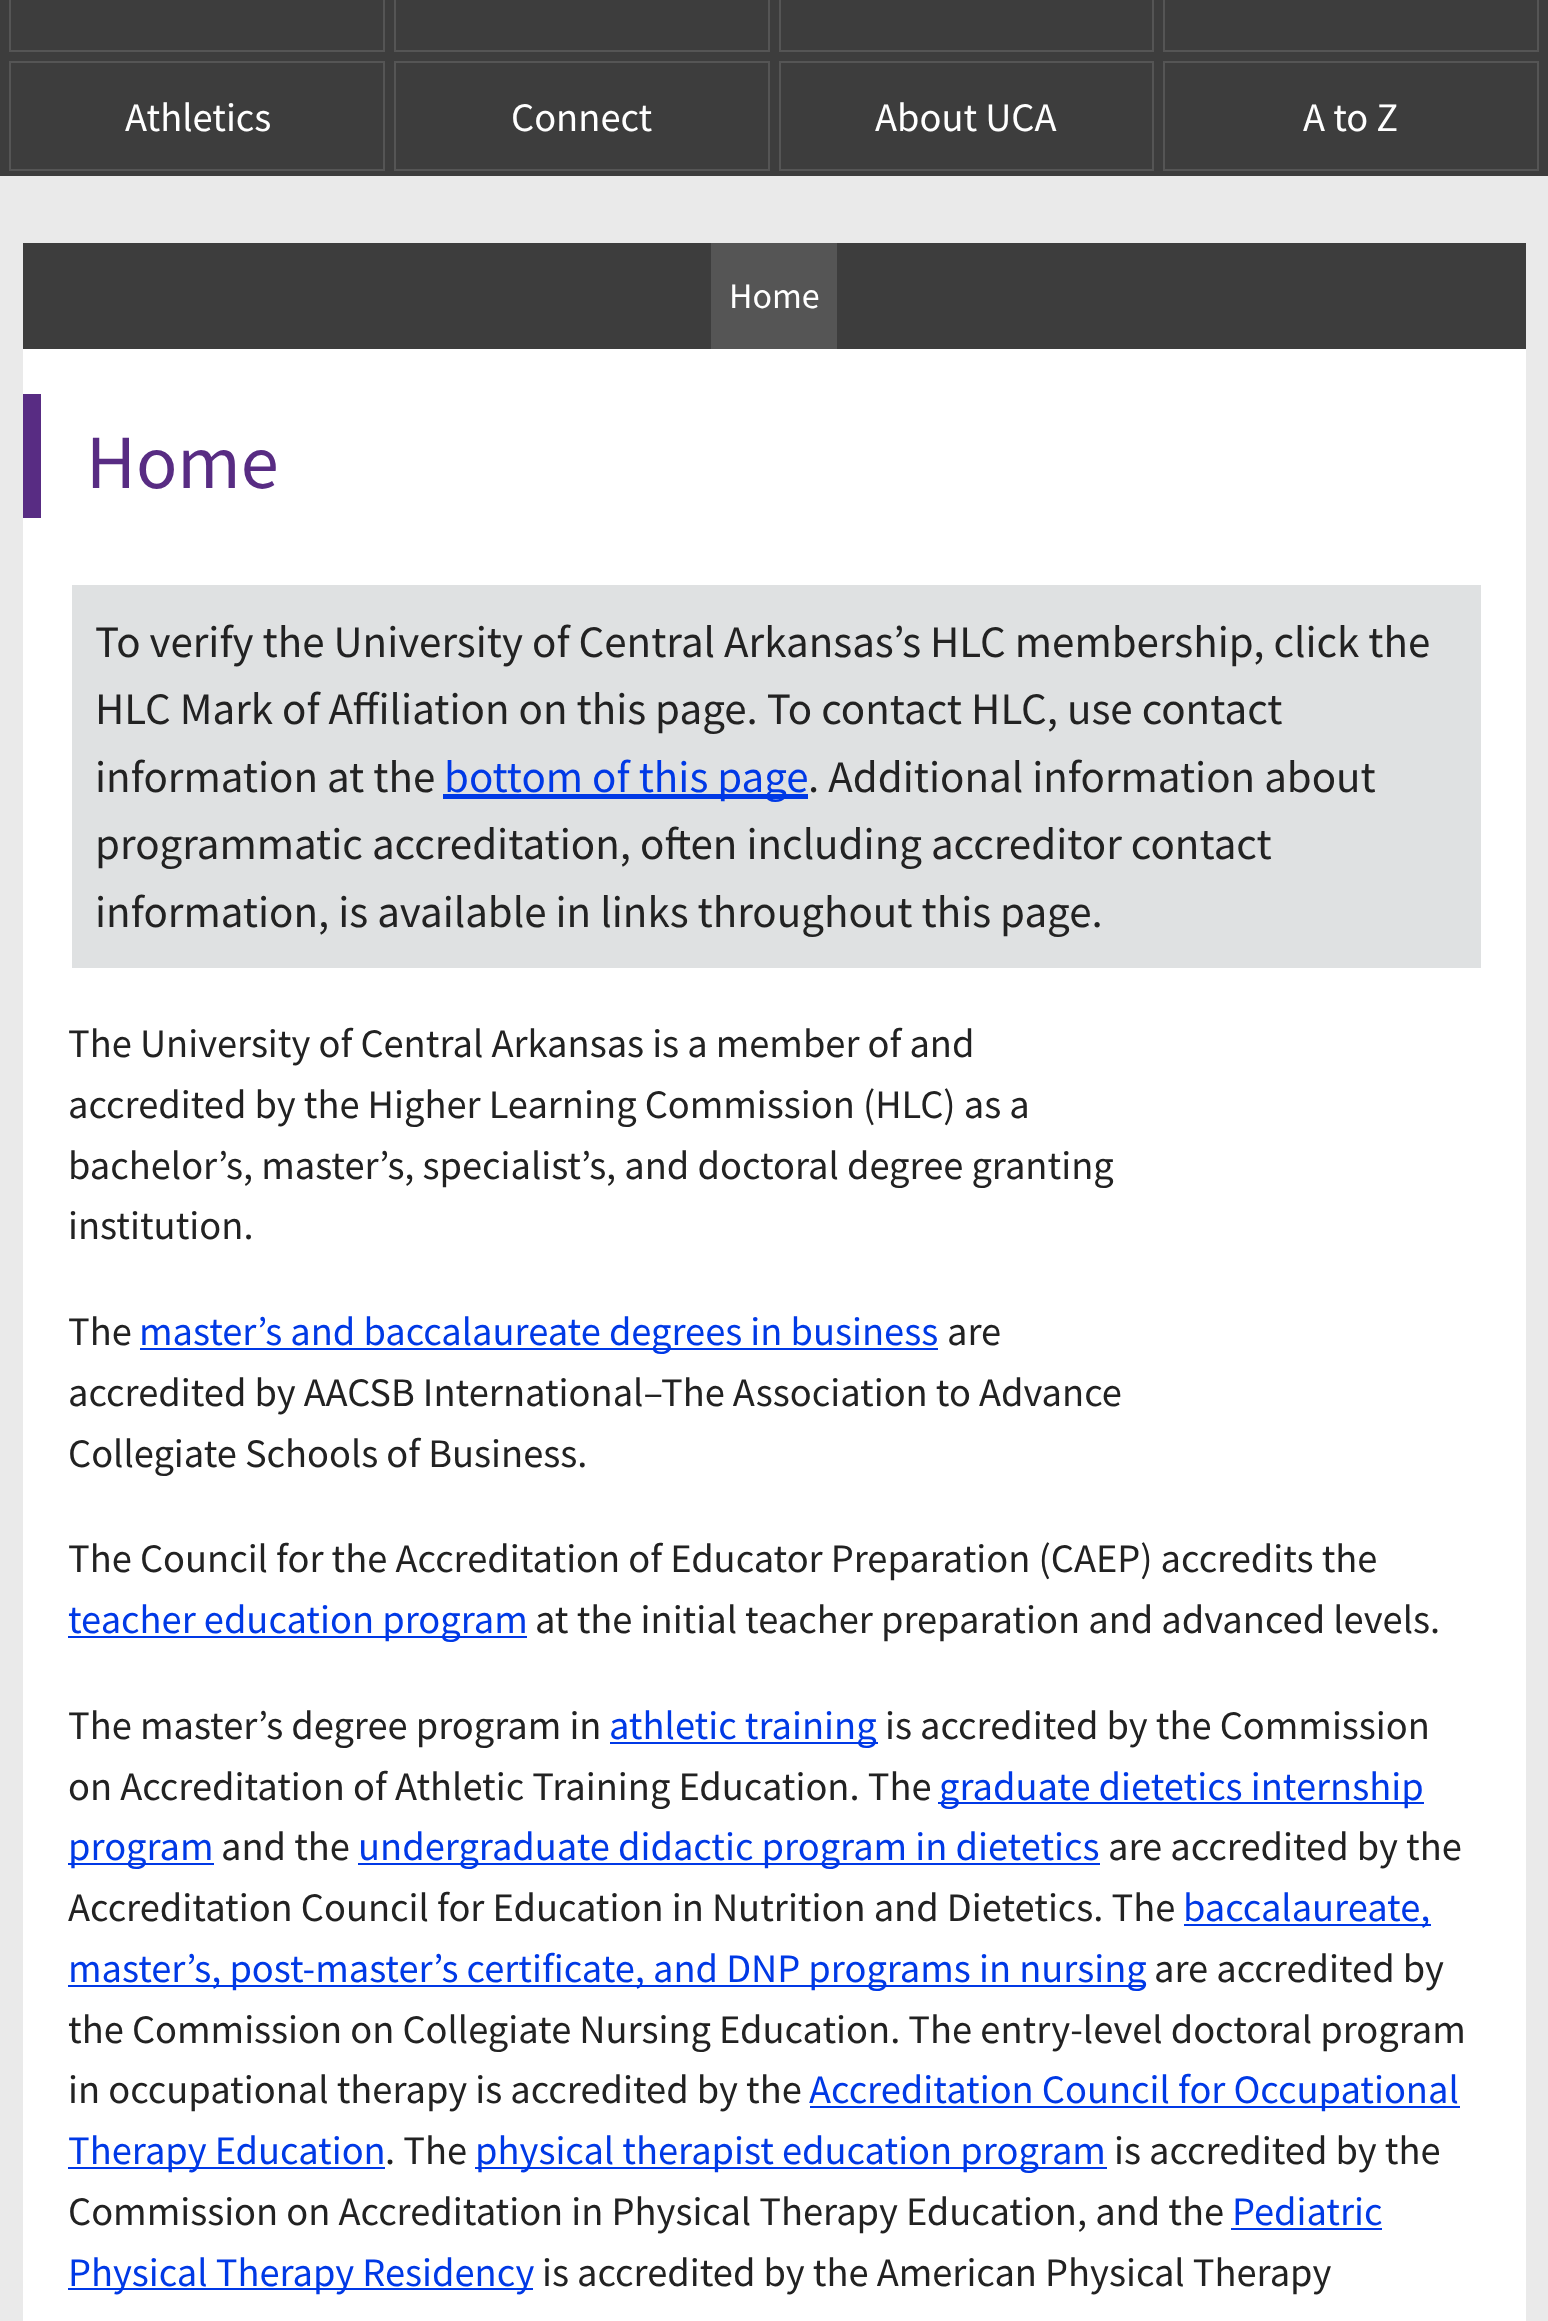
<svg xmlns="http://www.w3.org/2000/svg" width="1548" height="2321">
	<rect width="100%" height="100%" fill="#EAEAEA" />
	<rect x="0" y="0" width="1548" height="176" fill="#3D3D3D" />
	<rect x="10" y="-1" width="374" height="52" fill="none" stroke="#555555" stroke-width="2" />
	<rect x="395" y="-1" width="374" height="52" fill="none" stroke="#555555" stroke-width="2" />
	<rect x="780" y="-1" width="373" height="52" fill="none" stroke="#555555" stroke-width="2" />
	<rect x="1164" y="-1" width="374" height="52" fill="none" stroke="#555555" stroke-width="2" />
	<rect x="10" y="62" width="374" height="108" fill="none" stroke="#555555" stroke-width="2" />
	<text x="125" y="131" font-family="Source Sans Pro" font-size="40.5" fill="#FFFFFF">Athletics</text>
	<rect x="395" y="62" width="374" height="108" fill="none" stroke="#555555" stroke-width="2" />
	<text x="511" y="131" font-family="Source Sans Pro" font-size="40.5" fill="#FFFFFF">Connect</text>
	<rect x="780" y="62" width="373" height="108" fill="none" stroke="#555555" stroke-width="2" />
	<text x="875" y="131" font-family="Source Sans Pro" font-size="40.5" fill="#FFFFFF">About UCA</text>
	<rect x="1164" y="62" width="374" height="108" fill="none" stroke="#555555" stroke-width="2" />
	<text x="1303" y="131" font-family="Source Sans Pro" font-size="40.5" fill="#FFFFFF">A to Z</text>
	<rect x="23" y="243" width="1503" height="106" fill="#3D3D3D" />
	<rect x="711" y="243" width="126" height="106" fill="#555555" />
	<text x="729" y="308" font-family="Source Sans Pro" font-size="36" fill="#FFFFFF">Home</text>
	<rect x="23" y="349" width="1503" height="1972" fill="#FFFFFF" />
	<rect x="23" y="394" width="18" height="124" fill="#582C83" />
	<text x="86" y="488" font-family="Source Sans Pro" font-size="76.5" fill="#582C83">Home</text>
	<rect x="72" y="585" width="1409" height="383" fill="#DFE1E2" />
	<g font-family="Source Sans Pro" font-size="45" fill="#222222">
		<text x="95" y="657">To verify the University of Central Arkansas’s HLC membership, click the</text>
		<text x="95" y="724">HLC Mark of Affiliation on this page. To contact HLC, use contact</text>
		<text x="95" y="792">information at the</text>
	</g>
	<rect x="443" y="794" width="365" height="5" fill="#0039E6" />
	<text x="444" y="792" font-family="Source Sans Pro" font-size="45" fill="#0039E6">bottom of this page</text>
	<g font-family="Source Sans Pro" font-size="45" fill="#222222">
		<text x="808" y="792">. Additional information about</text>
		<text x="95" y="859">programmatic accreditation, often including accreditor contact</text>
		<text x="95" y="927">information, is available in links throughout this page.</text>
	</g>
	<g font-family="Source Sans Pro" font-size="40.5" fill="#222222">
		<text x="68" y="1057">The University of Central Arkansas is a member of and</text>
		<text x="68" y="1118">accredited by the Higher Learning Commission (HLC) as a</text>
		<text x="68" y="1179">bachelor’s, master’s, specialist’s, and doctoral degree granting</text>
		<text x="68" y="1239">institution.</text>
		<text x="68" y="1345">The</text>
	</g>
	<rect x="140" y="1348" width="798" height="2" fill="#0039E6" />
	<text x="139" y="1345" font-family="Source Sans Pro" font-size="40.5" fill="#0039E6">master’s and baccalaureate degrees in business</text>
	<g font-family="Source Sans Pro" font-size="40.5" fill="#222222">
		<text x="947" y="1345">are</text>
		<text x="68" y="1406">accredited by AACSB International–The Association to Advance</text>
		<text x="68" y="1467">Collegiate Schools of Business.</text>
		<text x="68" y="1572">The Council for the Accreditation of Educator Preparation (CAEP) accredits the</text>
	</g>
	<rect x="68" y="1636" width="459" height="2" fill="#0039E6" />
	<text x="68" y="1633" font-family="Source Sans Pro" font-size="40.5" fill="#0039E6">teacher education program</text>
	<g font-family="Source Sans Pro" font-size="40.5" fill="#222222">
		<text x="535" y="1633">at the initial teacher preparation and advanced levels.</text>
		<text x="68" y="1739">The master’s degree program in</text>
	</g>
	<rect x="610" y="1742" width="268" height="2" fill="#0039E6" />
	<text x="609" y="1739" font-family="Source Sans Pro" font-size="40.5" fill="#0039E6">athletic training</text>
	<g font-family="Source Sans Pro" font-size="40.5" fill="#222222">
		<text x="885" y="1739">is accredited by the Commission</text>
		<text x="68" y="1800">on Accreditation of Athletic Training Education. The</text>
	</g>
	<rect x="938" y="1802" width="486" height="2" fill="#0039E6" />
	<text x="939" y="1800" font-family="Source Sans Pro" font-size="40.5" fill="#0039E6">graduate dietetics internship</text>
	<rect x="68" y="1863" width="146" height="2" fill="#0039E6" />
	<text x="68" y="1860" font-family="Source Sans Pro" font-size="40.5" fill="#0039E6">program</text>
	<text x="221" y="1860" font-family="Source Sans Pro" font-size="40.5" fill="#222222">and the</text>
	<rect x="358" y="1863" width="742" height="2" fill="#0039E6" />
	<text x="358" y="1860" font-family="Source Sans Pro" font-size="40.5" fill="#0039E6">undergraduate didactic program in dietetics</text>
	<g font-family="Source Sans Pro" font-size="40.5" fill="#222222">
		<text x="1108" y="1860">are accredited by the</text>
		<text x="68" y="1921">Accreditation Council for Education in Nutrition and Dietetics. The</text>
	</g>
	<rect x="1184" y="1924" width="247" height="2" fill="#0039E6" />
	<text x="1183" y="1921" font-family="Source Sans Pro" font-size="40.5" fill="#0039E6">baccalaureate,</text>
	<rect x="68" y="1985" width="1077" height="2" fill="#0039E6" />
	<text x="68" y="1982" font-family="Source Sans Pro" font-size="40.5" fill="#0039E6">master’s, post-master’s certificate, and DNP programs in nursing</text>
	<g font-family="Source Sans Pro" font-size="40.5" fill="#222222">
		<text x="1154" y="1982">are accredited by</text>
		<text x="68" y="2043">the Commission on Collegiate Nursing Education. The entry-level doctoral program</text>
		<text x="68" y="2103">in occupational therapy is accredited by the</text>
	</g>
	<rect x="810" y="2106" width="650" height="2" fill="#0039E6" />
	<text x="809" y="2103" font-family="Source Sans Pro" font-size="40.5" fill="#0039E6">Accreditation Council for Occupational</text>
	<rect x="68" y="2167" width="317" height="2" fill="#0039E6" />
	<text x="68" y="2164" font-family="Source Sans Pro" font-size="40.5" fill="#0039E6">Therapy Education</text>
	<text x="385" y="2164" font-family="Source Sans Pro" font-size="40.5" fill="#222222">. The</text>
	<rect x="475" y="2167" width="632" height="2" fill="#0039E6" />
	<text x="475" y="2164" font-family="Source Sans Pro" font-size="40.5" fill="#0039E6">physical therapist education program</text>
	<g font-family="Source Sans Pro" font-size="40.5" fill="#222222">
		<text x="1114" y="2164">is accredited by the</text>
		<text x="68" y="2225">Commission on Accreditation in Physical Therapy Education, and the</text>
	</g>
	<text x="1232" y="2225" font-family="Source Sans Pro" font-size="40.5" fill="#0039E6">Pediatric</text>
	<rect x="1231" y="2228" width="151" height="2" fill="#0039E6" />
	<rect x="68" y="2288" width="465" height="2" fill="#0039E6" />
	<text x="68" y="2286" font-family="Source Sans Pro" font-size="40.5" fill="#0039E6">Physical Therapy Residency</text>
	<text x="542" y="2286" font-family="Source Sans Pro" font-size="40.5" fill="#222222">is accredited by the American Physical Therapy</text>
</svg>
